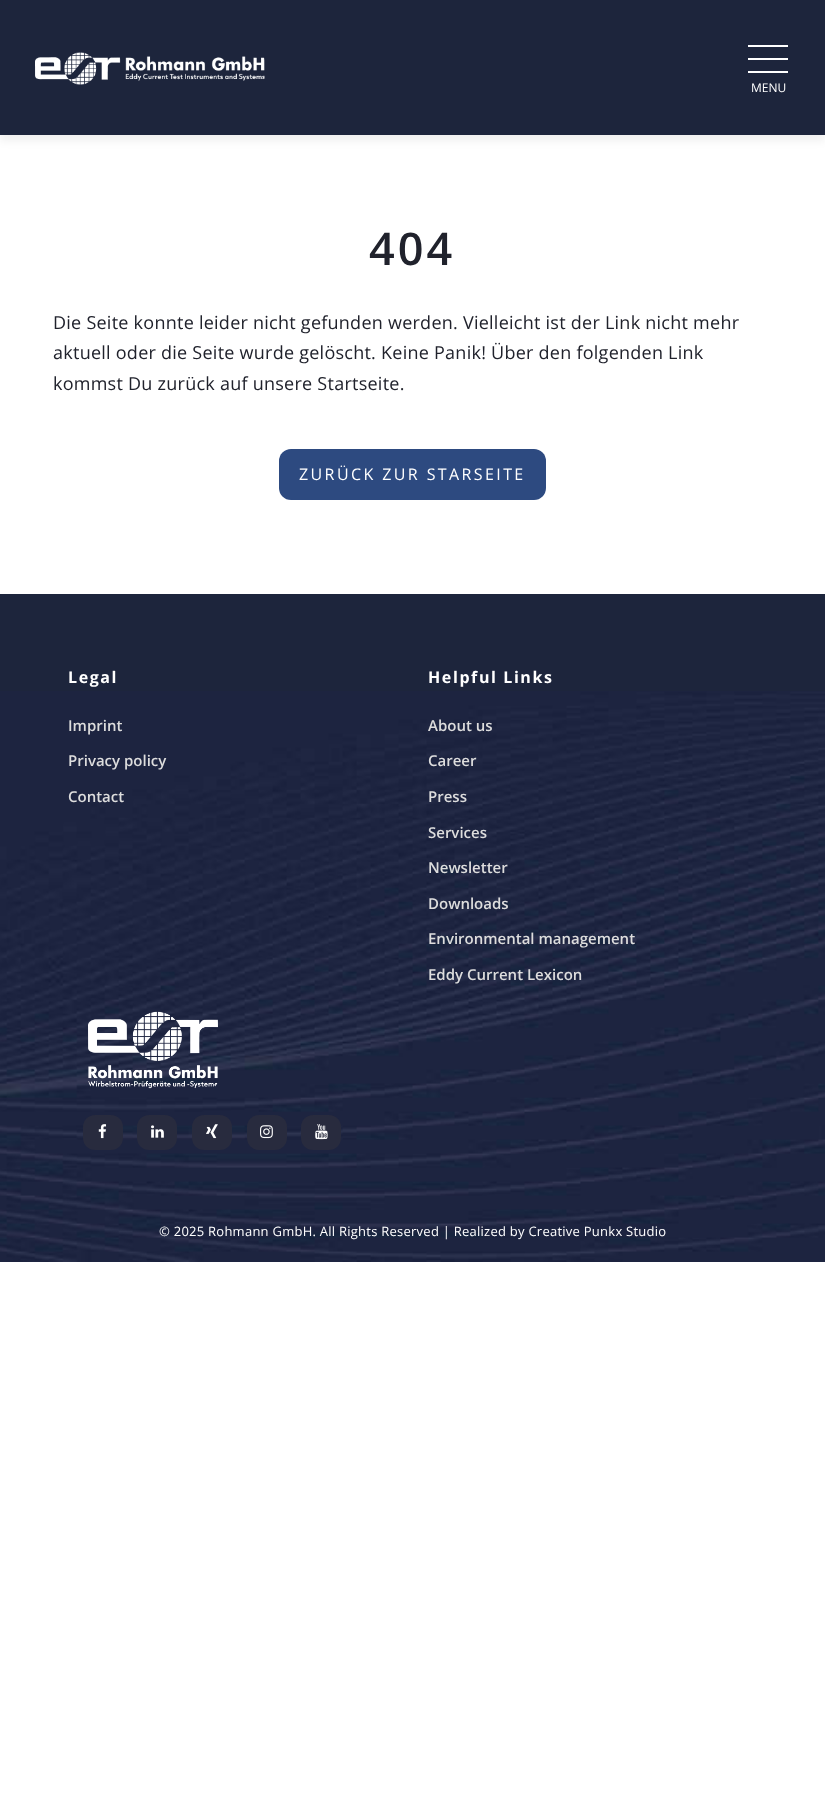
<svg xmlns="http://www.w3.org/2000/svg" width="825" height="1818">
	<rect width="100%" height="100%" fill="#FFFFFF" />
	<rect x="0" y="6" width="825" height="135" fill="#000000" fill-opacity="0.06" filter="blur(4.5px)" />
	<rect x="0" y="0" width="825" height="135" fill="#1D253C" />
	<image x="35" y="52" width="230" height="33" href="assets/img1.png" />
	<rect x="748" y="45" width="40" height="2" fill="#FFFFFF" />
	<rect x="748" y="58" width="40" height="2" fill="#FFFFFF" />
	<rect x="748" y="71" width="40" height="2" fill="#FFFFFF" />
	<text x="751" y="92" font-family="Open Sans" font-size="12" fill="#FFFFFF">MENU</text>
	<text x="369" y="265" font-family="Open Sans" font-size="45" font-weight="600" letter-spacing="3" fill="#20222C">404</text>
	<g font-family="Open Sans" font-size="18" letter-spacing="0.25" fill="#20222C">
		<text x="53" y="329">Die Seite konnte leider nicht gefunden werden. Vielleicht ist der Link nicht mehr</text>
		<text x="53" y="359">aktuell oder die Seite wurde gelöscht. Keine Panik! Über den folgenden Link</text>
		<text x="53" y="390">kommst Du zurück auf unsere Startseite.</text>
	</g>
	<rect x="279" y="449" width="267" height="51" rx="12" fill="#2D4A80" />
	<text x="299" y="480" font-family="Open Sans" font-size="16" letter-spacing="2.4" fill="#FFFFFF">ZURÜCK ZUR STARSEITE</text>
	<rect x="0" y="594" width="825" height="97" fill="#1D253C" />
	<image x="0" y="691" width="825" height="571" href="assets/img2.png" />
	<text x="68" y="683" font-family="Open Sans" font-size="16" font-weight="700" letter-spacing="1.6" fill="#FFFFFF">Legal</text>
	<g font-family="Open Sans" font-size="15" font-weight="600" fill="#DDDDDD">
		<text x="68" y="731">Imprint</text>
		<text x="68" y="766">Privacy policy</text>
		<text x="68" y="802">Contact</text>
	</g>
	<text x="428" y="683" font-family="Open Sans" font-size="16" font-weight="700" letter-spacing="1.6" fill="#FFFFFF">Helpful Links</text>
	<g font-family="Open Sans" font-size="15" font-weight="600" fill="#DDDDDD">
		<text x="428" y="731">About us</text>
		<text x="428" y="766">Career</text>
		<text x="428" y="802">Press</text>
		<text x="428" y="838">Services</text>
		<text x="428" y="873">Newsletter</text>
		<text x="428" y="909">Downloads</text>
		<text x="428" y="944">Environmental management</text>
		<text x="428" y="980">Eddy Current Lexicon</text>
	</g>
	<image x="88" y="1011" width="130" height="78" href="assets/img3.png" />
	<rect x="83" y="1115" width="40" height="35" rx="12" fill="#282B3E" />
	<image x="98" y="1124" width="9" height="15" href="assets/img4.png" />
	<rect x="137" y="1115" width="40" height="35" rx="12" fill="#282B3E" />
	<image x="151" y="1125" width="13" height="13" href="assets/img5.png" />
	<rect x="192" y="1115" width="40" height="35" rx="12" fill="#282B3E" />
	<image x="206" y="1124" width="12" height="15" href="assets/img6.png" />
	<rect x="247" y="1115" width="40" height="35" rx="12" fill="#282B3E" />
	<image x="260" y="1125" width="13" height="14" href="assets/img7.png" />
	<rect x="301" y="1115" width="40" height="35" rx="12" fill="#282B3E" />
	<image x="315" y="1124" width="13" height="16" href="assets/img8.png" />
	<text x="159" y="1236" font-family="Open Sans" font-size="13" letter-spacing="0.25" fill="#FFFFFF">© 2025 Rohmann GmbH. All Rights Reserved | Realized by Creative Punkx Studio</text>
</svg>
